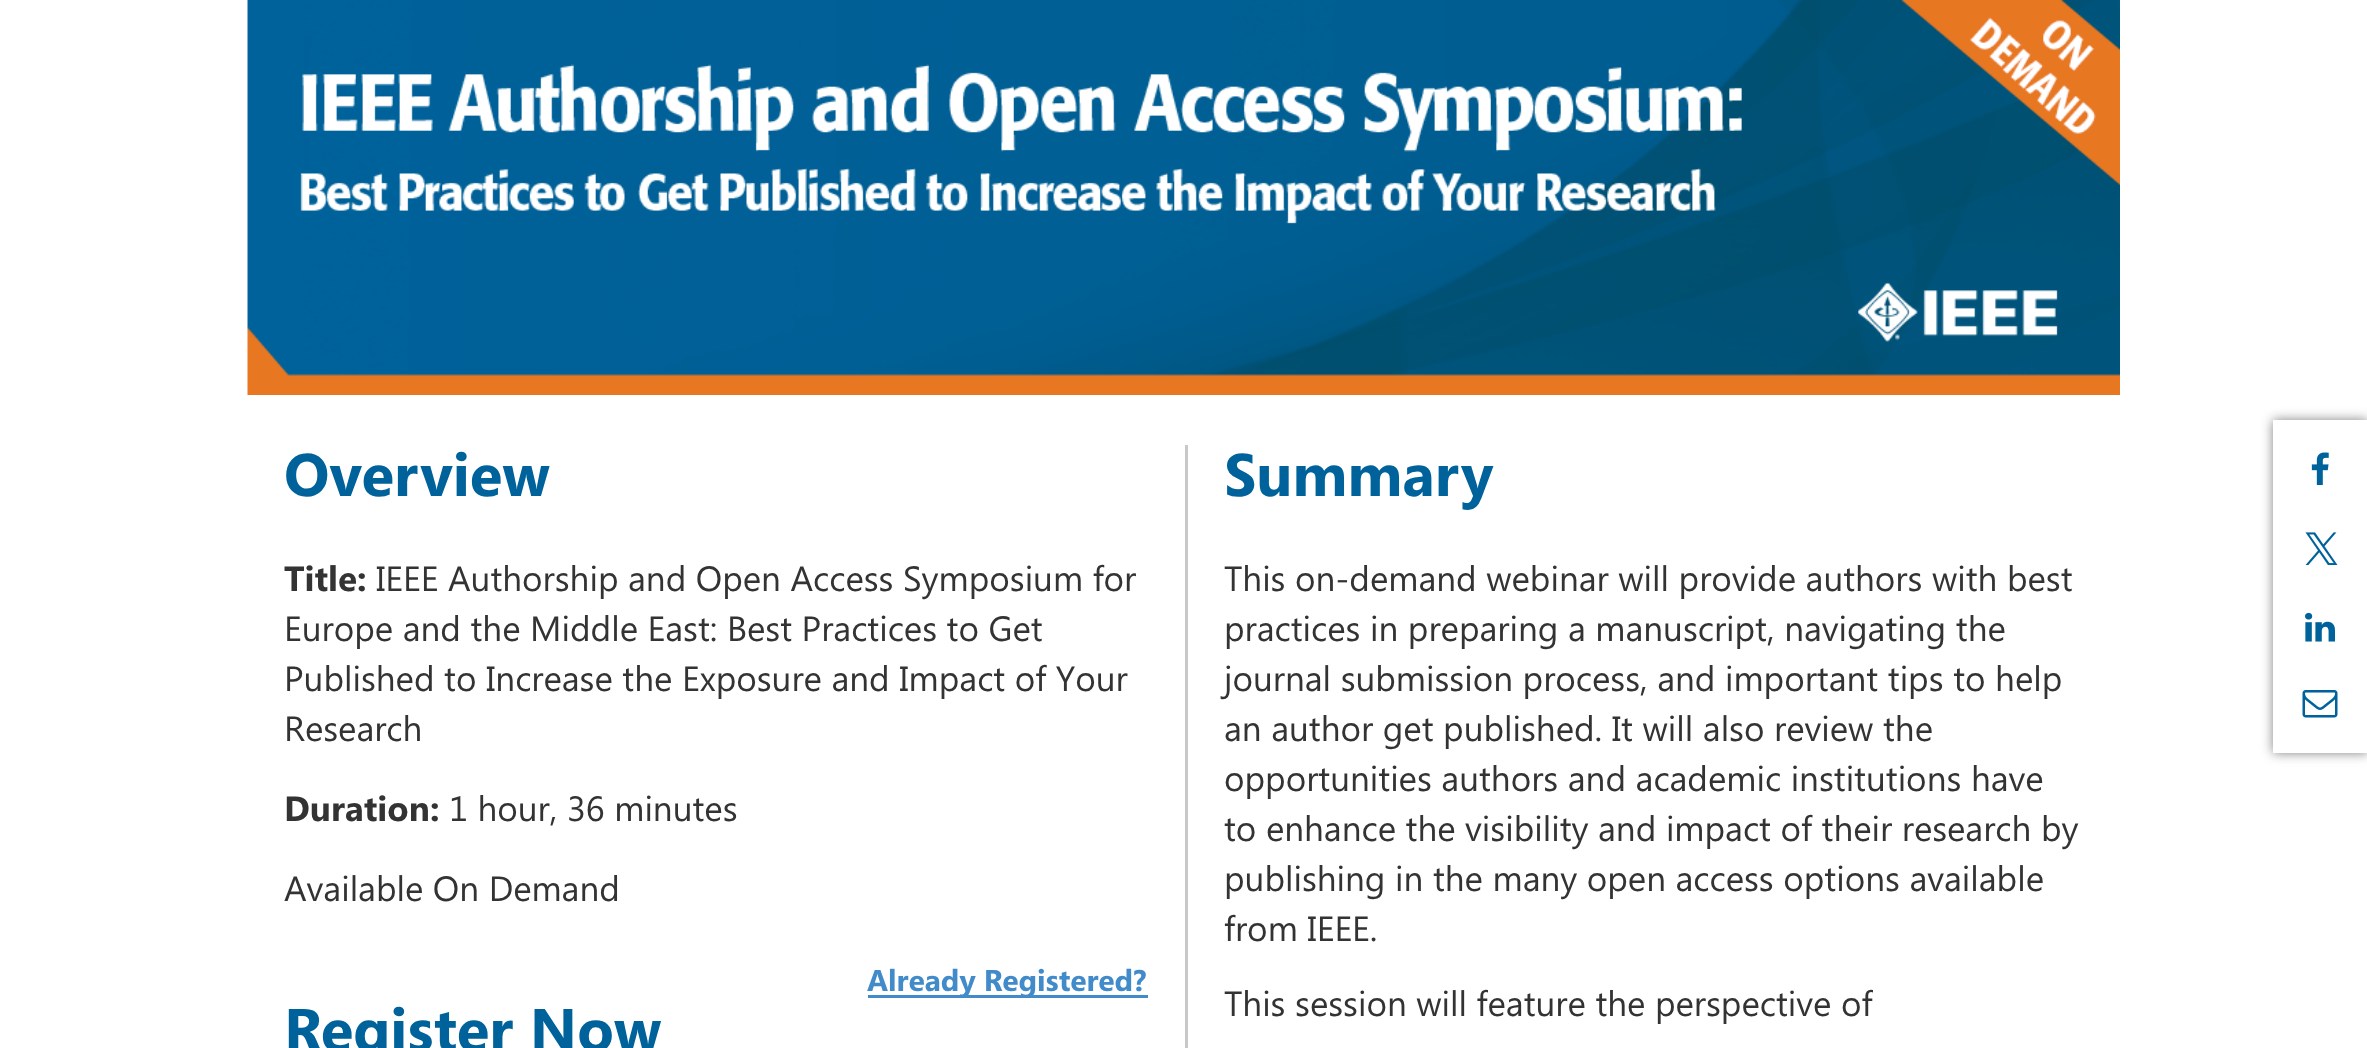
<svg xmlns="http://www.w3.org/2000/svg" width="2367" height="1048">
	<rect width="100%" height="100%" fill="#FFFFFF" />
	<image x="247" y="0" width="1873" height="395" href="assets/img1.png" />
	<text x="284" y="496" font-family="Segoe UI" font-size="60" font-weight="700" fill="#00629B">Overview</text>
	<text x="284" y="591" font-family="Segoe UI" font-size="35" font-weight="700" fill="#333333">Title:</text>
	<g font-family="Segoe UI" font-size="35" fill="#333333">
		<text x="376" y="591">IEEE Authorship and Open Access Symposium for</text>
		<text x="284" y="641">Europe and the Middle East: Best Practices to Get</text>
		<text x="284" y="691">Published to Increase the Exposure and Impact of Your</text>
		<text x="284" y="741">Research</text>
	</g>
	<text x="284" y="821" font-family="Segoe UI" font-size="35" font-weight="700" fill="#333333">Duration:</text>
	<g font-family="Segoe UI" font-size="35" fill="#333333">
		<text x="449" y="821">1 hour, 36 minutes</text>
		<text x="284" y="901">Available On Demand</text>
	</g>
	<rect x="868" y="995" width="280" height="3" fill="#428BCA" />
	<text x="867" y="991" font-family="Segoe UI" font-size="30" font-weight="700" fill="#428BCA">Already Registered?</text>
	<text x="284" y="1051" font-family="Segoe UI" font-size="60" font-weight="700" fill="#00629B">Register Now</text>
	<rect x="1185" y="445" width="3" height="603" fill="#C8C8C8" />
	<text x="1224" y="496" font-family="Segoe UI" font-size="60" font-weight="700" fill="#00629B">Summary</text>
	<g font-family="Segoe UI" font-size="35" fill="#333333">
		<text x="1224" y="591">This on-demand webinar will provide authors with best</text>
		<text x="1224" y="641">practices in preparing a manuscript, navigating the</text>
		<text x="1224" y="691">journal submission process, and important tips to help</text>
		<text x="1224" y="741">an author get published. It will also review the</text>
		<text x="1224" y="791">opportunities authors and academic institutions have</text>
		<text x="1224" y="841">to enhance the visibility and impact of their research by</text>
		<text x="1224" y="891">publishing in the many open access options available</text>
		<text x="1224" y="941">from IEEE.</text>
		<text x="1224" y="1016">This session will feature the perspective of</text>
	</g>
	<rect x="2273" y="420" width="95" height="333" fill="#808080" filter="blur(6px)" />
	<rect x="2273" y="420" width="94" height="333" fill="#FFFFFF" />
	<image x="2311" y="452" width="18" height="33" href="assets/img2.png" />
	<image x="2305" y="532" width="33" height="33" href="assets/img3.png" />
	<image x="2305" y="612" width="30" height="30" href="assets/img4.png" />
	<image x="2302" y="690" width="36" height="28" href="assets/img5.png" />
</svg>
